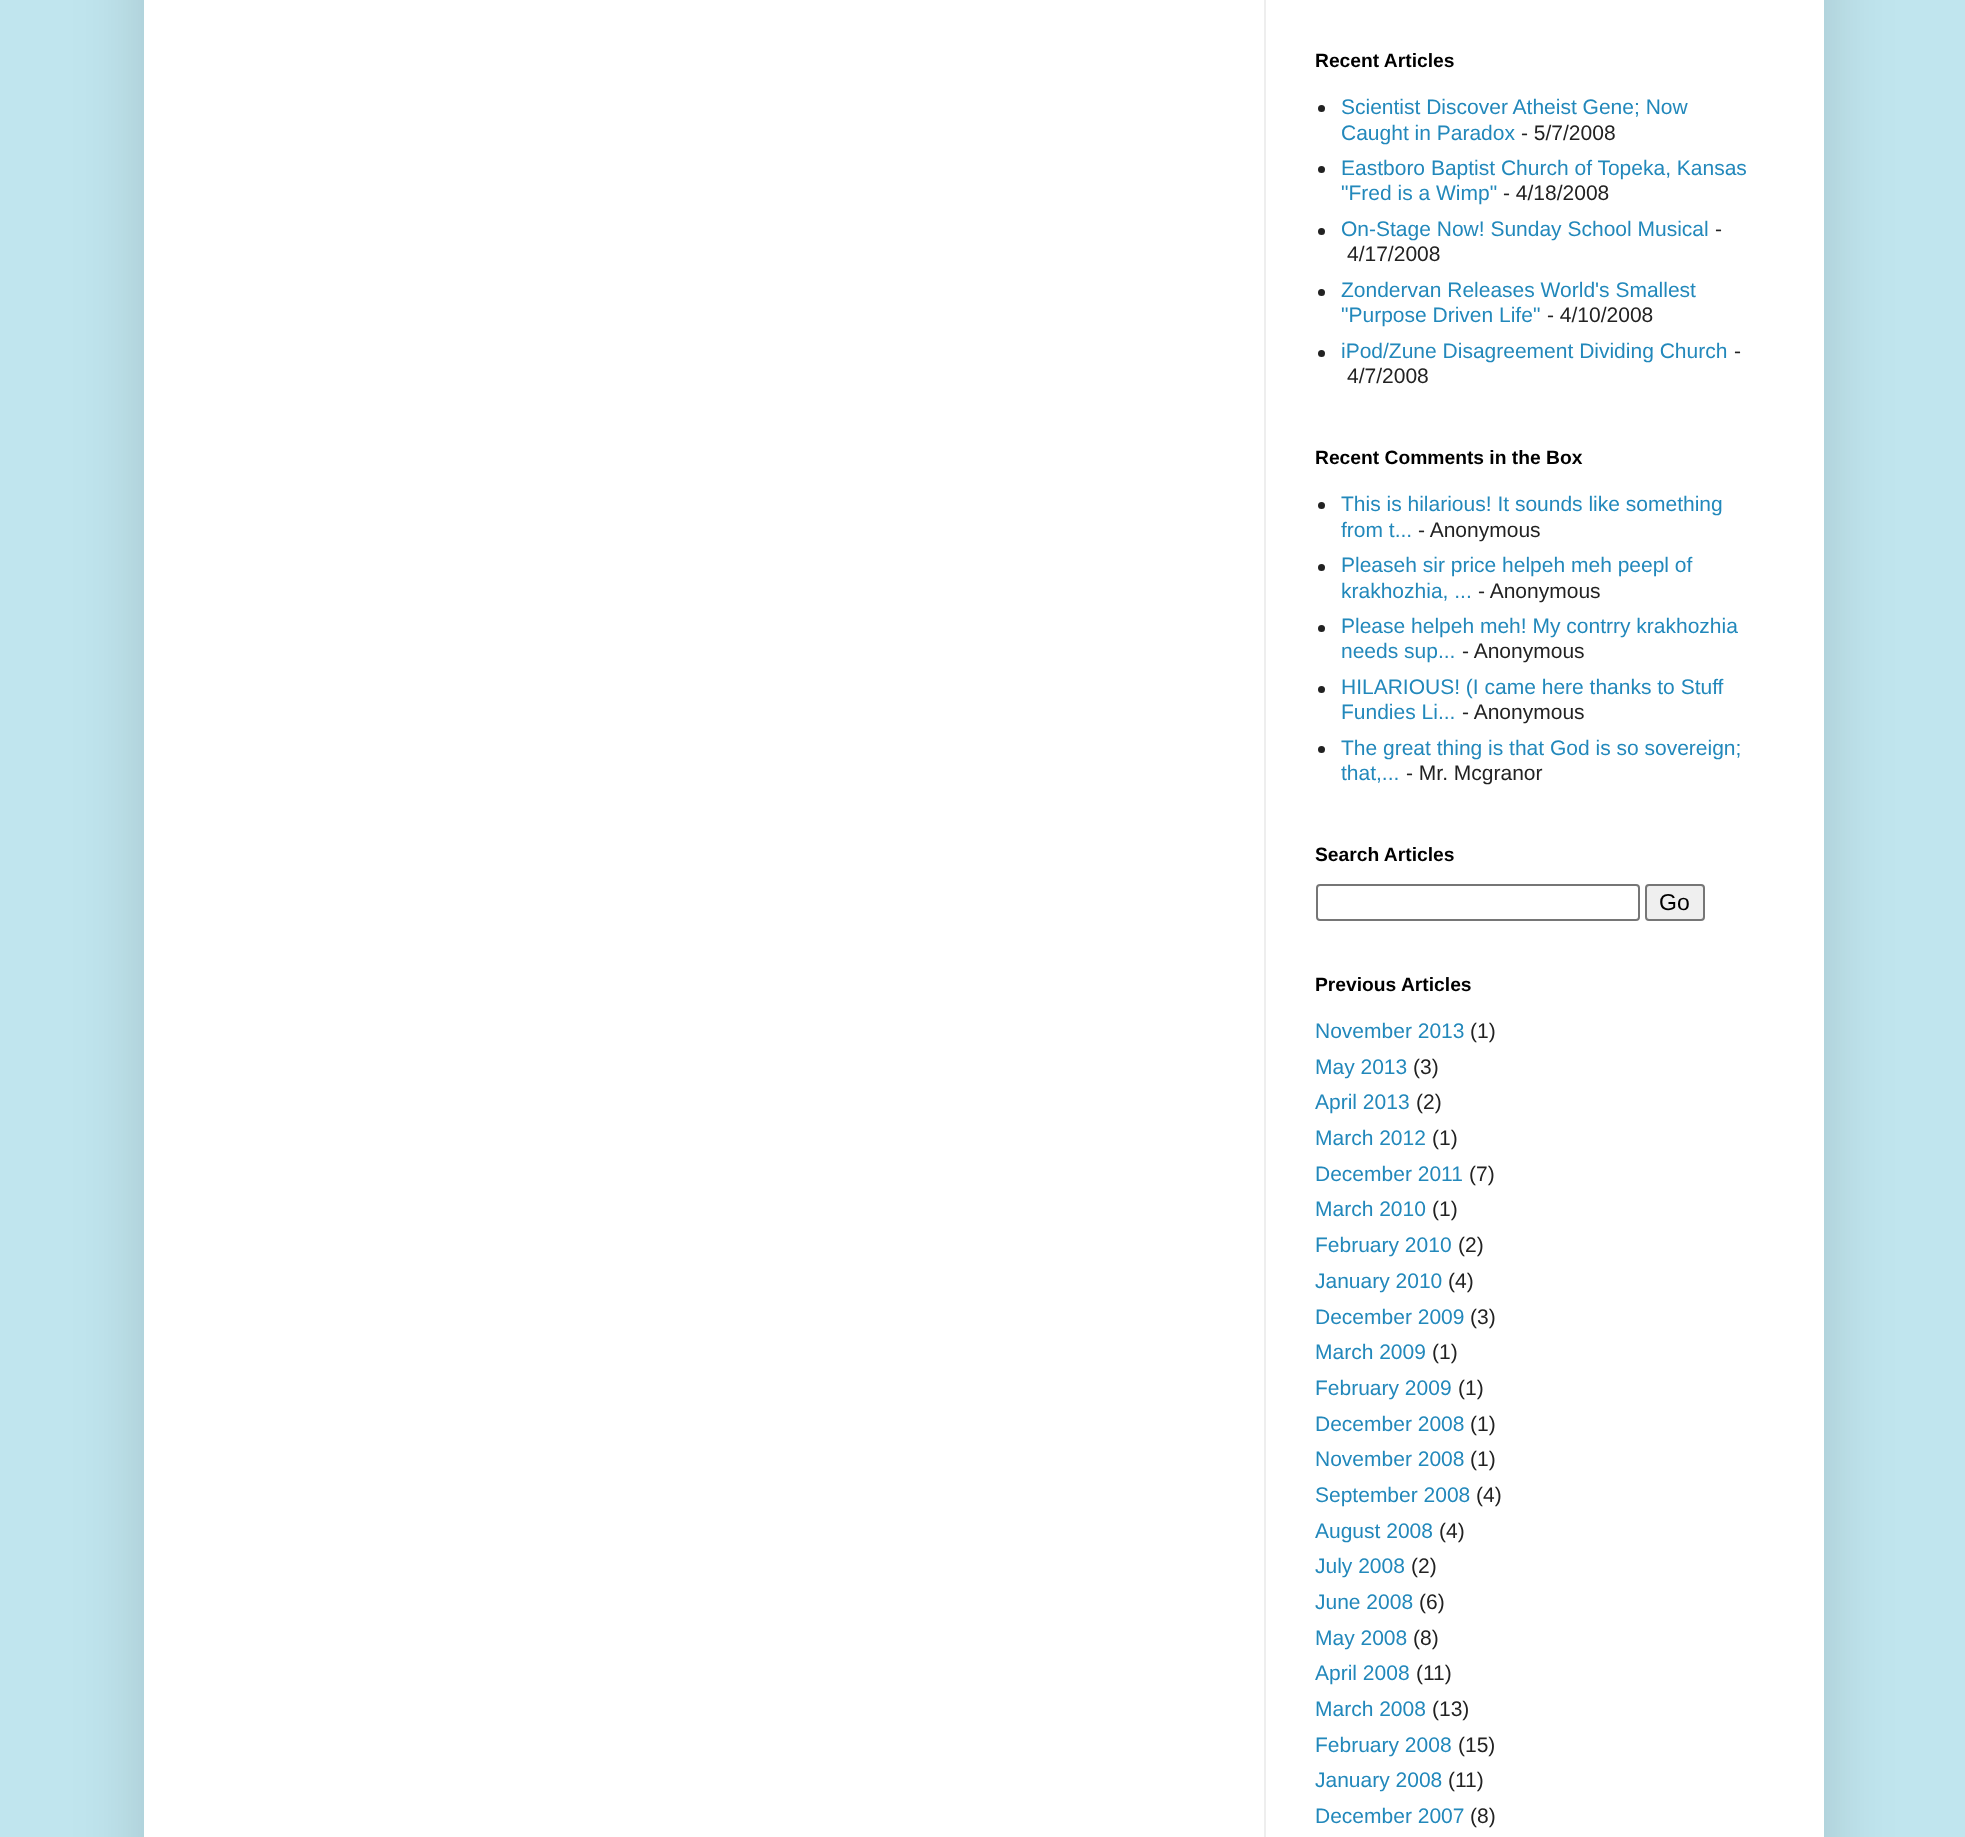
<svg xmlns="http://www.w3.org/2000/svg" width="1965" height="1837">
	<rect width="100%" height="100%" fill="#C0E5EE" />
	<rect x="144" y="-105" width="1680" height="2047" fill="#000000" fill-opacity="0.15" filter="blur(35px)" />
	<rect x="144" y="0" width="1680" height="1837" fill="#FFFFFF" />
	<rect x="1264" y="0" width="2" height="1837" fill="#EEEEEE" />
	<text x="1315" y="67" font-family="Liberation Sans" font-size="19.25" font-weight="700" fill="#000000">Recent Articles</text>
	<circle cx="1321.5" cy="108.5" r="3.5" fill="#222222" />
	<g font-family="Liberation Sans" font-size="21" fill="#2288BB">
		<text x="1341" y="114">Scientist Discover Atheist Gene; Now</text>
		<text x="1341" y="140">Caught in Paradox</text>
	</g>
	<text x="1521" y="140" font-family="Liberation Sans" font-size="21" fill="#222222">- 5/7/2008</text>
	<circle cx="1321.5" cy="169.5" r="3.5" fill="#222222" />
	<g font-family="Liberation Sans" font-size="21" fill="#2288BB">
		<text x="1341" y="175">Eastboro Baptist Church of Topeka, Kansas</text>
		<text x="1341" y="200">"Fred is a Wimp"</text>
	</g>
	<text x="1503" y="200" font-family="Liberation Sans" font-size="21" fill="#222222">- 4/18/2008</text>
	<circle cx="1321.5" cy="231.5" r="3.5" fill="#222222" />
	<text x="1341" y="236" font-family="Liberation Sans" font-size="21" fill="#2288BB">On-Stage Now! Sunday School Musical</text>
	<g font-family="Liberation Sans" font-size="21" fill="#222222">
		<text x="1715" y="236">-</text>
		<text x="1347" y="261">4/17/2008</text>
	</g>
	<circle cx="1321.5" cy="292.5" r="3.5" fill="#222222" />
	<g font-family="Liberation Sans" font-size="21" fill="#2288BB">
		<text x="1341" y="297">Zondervan Releases World's Smallest</text>
		<text x="1341" y="322">"Purpose Driven Life"</text>
	</g>
	<text x="1547" y="322" font-family="Liberation Sans" font-size="21" fill="#222222">- 4/10/2008</text>
	<circle cx="1321.5" cy="353.5" r="3.5" fill="#222222" />
	<text x="1341" y="358" font-family="Liberation Sans" font-size="21" fill="#2288BB">iPod/Zune Disagreement Dividing Church</text>
	<g font-family="Liberation Sans" font-size="21" fill="#222222">
		<text x="1734" y="358">-</text>
		<text x="1347" y="383">4/7/2008</text>
	</g>
	<text x="1315" y="464" font-family="Liberation Sans" font-size="19.25" font-weight="700" fill="#000000">Recent Comments in the Box</text>
	<circle cx="1321.5" cy="505.5" r="3.5" fill="#222222" />
	<g font-family="Liberation Sans" font-size="21" fill="#2288BB">
		<text x="1341" y="511">This is hilarious! It sounds like something</text>
		<text x="1341" y="537">from t...</text>
	</g>
	<text x="1418" y="537" font-family="Liberation Sans" font-size="21" fill="#222222">- Anonymous</text>
	<circle cx="1321.5" cy="567.5" r="3.5" fill="#222222" />
	<g font-family="Liberation Sans" font-size="21" fill="#2288BB">
		<text x="1341" y="572">Pleaseh sir price helpeh meh peepl of</text>
		<text x="1341" y="598">krakhozhia, ...</text>
	</g>
	<text x="1478" y="598" font-family="Liberation Sans" font-size="21" fill="#222222">- Anonymous</text>
	<circle cx="1321.5" cy="628.5" r="3.5" fill="#222222" />
	<g font-family="Liberation Sans" font-size="21" fill="#2288BB">
		<text x="1341" y="633">Please helpeh meh! My contrry krakhozhia</text>
		<text x="1341" y="658">needs sup...</text>
	</g>
	<text x="1462" y="658" font-family="Liberation Sans" font-size="21" fill="#222222">- Anonymous</text>
	<circle cx="1321.5" cy="689.5" r="3.5" fill="#222222" />
	<g font-family="Liberation Sans" font-size="21" fill="#2288BB">
		<text x="1341" y="694">HILARIOUS! (I came here thanks to Stuff</text>
		<text x="1341" y="719">Fundies Li...</text>
	</g>
	<text x="1462" y="719" font-family="Liberation Sans" font-size="21" fill="#222222">- Anonymous</text>
	<circle cx="1321.5" cy="749.5" r="3.5" fill="#222222" />
	<g font-family="Liberation Sans" font-size="21" fill="#2288BB">
		<text x="1341" y="755">The great thing is that God is so sovereign;</text>
		<text x="1341" y="780">that,...</text>
	</g>
	<text x="1406" y="780" font-family="Liberation Sans" font-size="21" fill="#222222">- Mr. Mcgranor</text>
	<text x="1315" y="861" font-family="Liberation Sans" font-size="19.25" font-weight="700" fill="#000000">Search Articles</text>
	<rect x="1317" y="885" width="322" height="35" rx="3" fill="none" stroke="#767676" stroke-width="2" />
	<rect x="1646" y="885" width="58" height="35" rx="3" fill="#EFEFEF" stroke="#767676" stroke-width="2" />
	<text x="1659" y="910" font-family="Liberation Sans" font-size="23" fill="#000000">Go</text>
	<text x="1315" y="991" font-family="Liberation Sans" font-size="19.25" font-weight="700" fill="#000000">Previous Articles</text>
	<text x="1315" y="1038" font-family="Liberation Sans" font-size="21" fill="#2288BB">November 2013</text>
	<text x="1470" y="1038" font-family="Liberation Sans" font-size="21" fill="#222222">(1)</text>
	<text x="1315" y="1074" font-family="Liberation Sans" font-size="21" fill="#2288BB">May 2013</text>
	<text x="1413" y="1074" font-family="Liberation Sans" font-size="21" fill="#222222">(3)</text>
	<text x="1315" y="1109" font-family="Liberation Sans" font-size="21" fill="#2288BB">April 2013</text>
	<text x="1416" y="1109" font-family="Liberation Sans" font-size="21" fill="#222222">(2)</text>
	<text x="1315" y="1145" font-family="Liberation Sans" font-size="21" fill="#2288BB">March 2012</text>
	<text x="1432" y="1145" font-family="Liberation Sans" font-size="21" fill="#222222">(1)</text>
	<text x="1315" y="1181" font-family="Liberation Sans" font-size="21" fill="#2288BB">December 2011</text>
	<text x="1469" y="1181" font-family="Liberation Sans" font-size="21" fill="#222222">(7)</text>
	<text x="1315" y="1216" font-family="Liberation Sans" font-size="21" fill="#2288BB">March 2010</text>
	<text x="1432" y="1216" font-family="Liberation Sans" font-size="21" fill="#222222">(1)</text>
	<text x="1315" y="1252" font-family="Liberation Sans" font-size="21" fill="#2288BB">February 2010</text>
	<text x="1458" y="1252" font-family="Liberation Sans" font-size="21" fill="#222222">(2)</text>
	<text x="1315" y="1288" font-family="Liberation Sans" font-size="21" fill="#2288BB">January 2010</text>
	<text x="1448" y="1288" font-family="Liberation Sans" font-size="21" fill="#222222">(4)</text>
	<text x="1315" y="1324" font-family="Liberation Sans" font-size="21" fill="#2288BB">December 2009</text>
	<text x="1470" y="1324" font-family="Liberation Sans" font-size="21" fill="#222222">(3)</text>
	<text x="1315" y="1359" font-family="Liberation Sans" font-size="21" fill="#2288BB">March 2009</text>
	<text x="1432" y="1359" font-family="Liberation Sans" font-size="21" fill="#222222">(1)</text>
	<text x="1315" y="1395" font-family="Liberation Sans" font-size="21" fill="#2288BB">February 2009</text>
	<text x="1458" y="1395" font-family="Liberation Sans" font-size="21" fill="#222222">(1)</text>
	<text x="1315" y="1431" font-family="Liberation Sans" font-size="21" fill="#2288BB">December 2008</text>
	<text x="1470" y="1431" font-family="Liberation Sans" font-size="21" fill="#222222">(1)</text>
	<text x="1315" y="1466" font-family="Liberation Sans" font-size="21" fill="#2288BB">November 2008</text>
	<text x="1470" y="1466" font-family="Liberation Sans" font-size="21" fill="#222222">(1)</text>
	<text x="1315" y="1502" font-family="Liberation Sans" font-size="21" fill="#2288BB">September 2008</text>
	<text x="1476" y="1502" font-family="Liberation Sans" font-size="21" fill="#222222">(4)</text>
	<text x="1315" y="1538" font-family="Liberation Sans" font-size="21" fill="#2288BB">August 2008</text>
	<text x="1439" y="1538" font-family="Liberation Sans" font-size="21" fill="#222222">(4)</text>
	<text x="1315" y="1573" font-family="Liberation Sans" font-size="21" fill="#2288BB">July 2008</text>
	<text x="1411" y="1573" font-family="Liberation Sans" font-size="21" fill="#222222">(2)</text>
	<text x="1315" y="1609" font-family="Liberation Sans" font-size="21" fill="#2288BB">June 2008</text>
	<text x="1419" y="1609" font-family="Liberation Sans" font-size="21" fill="#222222">(6)</text>
	<text x="1315" y="1645" font-family="Liberation Sans" font-size="21" fill="#2288BB">May 2008</text>
	<text x="1413" y="1645" font-family="Liberation Sans" font-size="21" fill="#222222">(8)</text>
	<text x="1315" y="1680" font-family="Liberation Sans" font-size="21" fill="#2288BB">April 2008</text>
	<text x="1416" y="1680" font-family="Liberation Sans" font-size="21" fill="#222222">(11)</text>
	<text x="1315" y="1716" font-family="Liberation Sans" font-size="21" fill="#2288BB">March 2008</text>
	<text x="1432" y="1716" font-family="Liberation Sans" font-size="21" fill="#222222">(13)</text>
	<text x="1315" y="1752" font-family="Liberation Sans" font-size="21" fill="#2288BB">February 2008</text>
	<text x="1458" y="1752" font-family="Liberation Sans" font-size="21" fill="#222222">(15)</text>
	<text x="1315" y="1787" font-family="Liberation Sans" font-size="21" fill="#2288BB">January 2008</text>
	<text x="1448" y="1787" font-family="Liberation Sans" font-size="21" fill="#222222">(11)</text>
	<text x="1315" y="1823" font-family="Liberation Sans" font-size="21" fill="#2288BB">December 2007</text>
	<text x="1470" y="1823" font-family="Liberation Sans" font-size="21" fill="#222222">(8)</text>
</svg>
